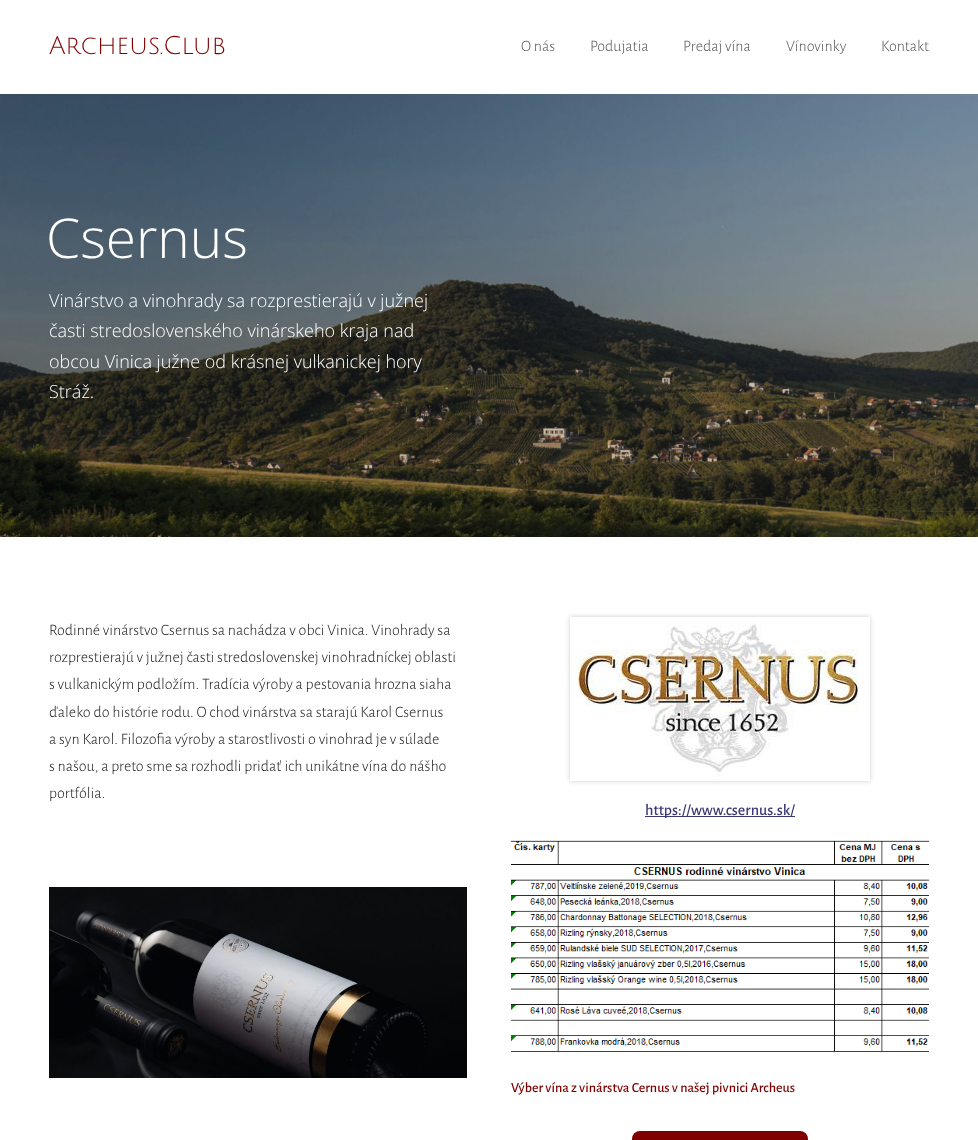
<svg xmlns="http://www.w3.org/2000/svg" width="978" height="1140">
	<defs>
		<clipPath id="clip1"><path d="M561 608H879V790H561ZM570 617H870V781H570Z" clip-rule="evenodd" /></clipPath>
	</defs>
	<rect width="100%" height="100%" fill="#FFFFFF" />
	<text x="49" y="54" font-family="Julius Sans One" font-size="25" fill="#800000">Archeus.Club</text>
	<g font-family="Alegreya Sans" font-size="16" font-weight="300" fill="#575757">
		<text x="521" y="51">O nás</text>
		<text x="590" y="51">Podujatia</text>
		<text x="683" y="51">Predaj vína</text>
		<text x="786" y="51">Vínovinky</text>
		<text x="881" y="51">Kontakt</text>
	</g>
	<image x="0" y="94" width="978" height="443" href="assets/img1.png" />
	<text x="46" y="258" font-family="Open Sans" font-size="55" font-weight="300" fill="#FFFFFF">Csernus</text>
	<g font-family="Open Sans" font-size="18" font-weight="300" fill="#FFFFFF">
		<text x="49" y="307">Vinárstvo a vinohrady sa rozprestierajú v južnej</text>
		<text x="49" y="337">časti stredoslovenského vinárskeho kraja nad</text>
		<text x="49" y="368">obcou Vinica južne od krásnej vulkanickej hory</text>
		<text x="49" y="398">Stráž.</text>
	</g>
	<g font-family="Alegreya Sans" font-size="16" font-weight="300" fill="#1A181C">
		<text x="49" y="635">Rodinné vinárstvo Csernus sa nachádza v obci Vinica. Vinohrady sa</text>
		<text x="49" y="662">rozprestierajú v južnej časti stredoslovenskej vinohradníckej oblasti</text>
		<text x="49" y="689">s vulkanickým podložím. Tradícia výroby a pestovania hrozna siaha</text>
		<text x="49" y="717">ďaleko do histórie rodu. O chod vinárstva sa starajú Karol Csernus</text>
		<text x="49" y="744">a syn Karol. Filozofia výroby a starostlivosti o vinohrad je v súlade</text>
		<text x="49" y="771">s našou, a preto sme sa rozhodli pridať ich unikátne vína do nášho</text>
		<text x="49" y="798">portfólia.</text>
	</g>
	<image x="49" y="887" width="418" height="191" href="assets/img2.png" />
	<g clip-path="url(#clip1)">
		<rect x="570" y="617" width="300" height="164" fill="#000000" fill-opacity="0.2" filter="blur(2.5px)" />
	</g>
	<image x="570" y="623" width="288" height="154" href="assets/img3.png" />
	<rect x="645" y="816" width="150" height="1" fill="#3C3A75" />
	<text x="645" y="815" font-family="Alegreya Sans" font-size="16" font-weight="500" fill="#3C3A75">https://www.csernus.sk/</text>
	<image x="511" y="840" width="418" height="213" href="assets/img4.png" />
	<text x="511" y="1092" font-family="Alegreya Sans" font-size="14" font-weight="500" fill="#800000">Výber vína z vinárstva Cernus v našej pivnici Archeus</text>
	<rect x="632" y="1131" width="176" height="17" rx="8" fill="#800000" />
</svg>
